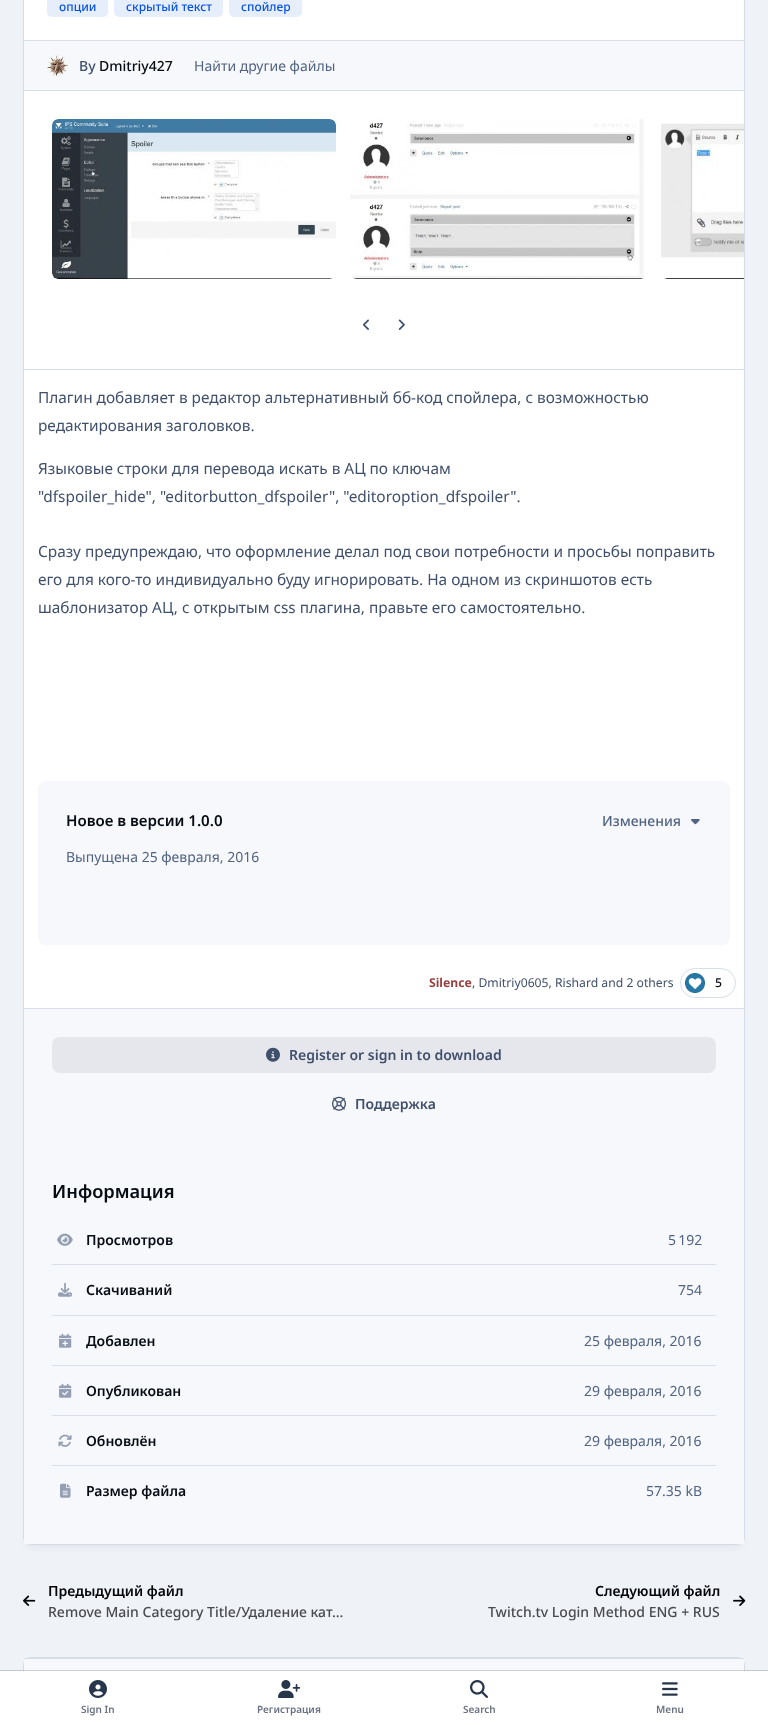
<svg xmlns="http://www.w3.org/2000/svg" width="768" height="1726">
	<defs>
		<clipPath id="clip1"><rect x="52" y="1215" width="664" height="301" /></clipPath>
	</defs>
	<rect width="100%" height="100%" fill="#EFF2F7" />
	<rect x="26" y="-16" width="716" height="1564" rx="5" fill="#01030A" fill-opacity="0.05" filter="blur(3.5px)" />
	<rect x="23.5" y="-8.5" width="721" height="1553" rx="7.5" fill="#FFFFFF" stroke="#D5DBE6" />
	<rect x="24" y="90" width="720" height="1" fill="#D7DFEA" />
	<rect x="47" y="-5" width="61" height="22" rx="5" fill="#E6EEFC" />
	<text x="59" y="11" font-family="Noto Sans" font-size="12" font-weight="500" fill="#0752E2">опции</text>
	<rect x="114" y="-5" width="109" height="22" rx="5" fill="#E6EEFC" />
	<text x="126" y="11" font-family="Noto Sans" font-size="12" font-weight="500" fill="#0752E2">скрытый текст</text>
	<rect x="229" y="-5" width="73" height="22" rx="5" fill="#E6EEFC" />
	<text x="241" y="11" font-family="Noto Sans" font-size="12" font-weight="500" fill="#0752E2">спойлер</text>
	<rect x="24" y="41" width="720" height="49" fill="#F7F8FB" />
	<rect x="24" y="40" width="720" height="1" fill="#D7DFEA" />
	<circle cx="57.5" cy="65.5" r="10.5" fill="#E5EAF2" />
	<image x="47" y="55" width="21" height="21" href="assets/img1.png" />
	<text x="79" y="71" font-family="Noto Sans" font-size="14" font-weight="500" fill="#40506B">By</text>
	<text x="99" y="71" font-family="Noto Sans" font-size="14" font-weight="500" fill="#060B14">Dmitriy427</text>
	<text x="194" y="71" font-family="Noto Sans" font-size="14" fill="#516483">Найти другие файлы</text>
	<rect x="24" y="369" width="720" height="1" fill="#D7DFEA" />
	<image x="52" y="119" width="284" height="160" href="assets/img2.png" />
	<image x="350" y="119" width="294" height="160" href="assets/img3.png" />
	<image x="661" y="123" width="83" height="156" href="assets/img4.png" />
	<image x="362" y="319" width="7" height="11" href="assets/img5.png" />
	<image x="398" y="319" width="7" height="11" href="assets/img6.png" />
	<rect x="24" y="1008" width="720" height="1" fill="#D7DFEA" />
	<g font-family="Noto Sans" font-size="15.4" fill="#40506B">
		<text x="38" y="403">Плагин добавляет в редактор альтернативный бб-код спойлера, с возможностью</text>
		<text x="38" y="431">редактирования заголовков.</text>
		<text x="38" y="474">Языковые строки для перевода искать в АЦ по ключам</text>
		<text x="38" y="502">"dfspoiler_hide", "editorbutton_dfspoiler", "editoroption_dfspoiler".</text>
		<text x="38" y="557">Сразу предупреждаю, что оформление делал под свои потребности и просьбы поправить</text>
		<text x="38" y="585">его для кого-то индивидуально буду игнорировать. На одном из скриншотов есть</text>
		<text x="38" y="613">шаблонизатор АЦ, с открытым css плагина, правьте его самостоятельно.</text>
	</g>
	<rect x="38" y="781" width="692" height="164" rx="8" fill="#F7F8FB" />
	<text x="66" y="826" font-family="Noto Sans" font-size="15.1" font-weight="600" fill="#060B14">Новое в версии 1.0.0</text>
	<text x="602" y="826" font-family="Noto Sans" font-size="14" font-weight="500" fill="#516483">Изменения</text>
	<image x="691" y="819" width="9" height="6" href="assets/img7.png" />
	<text x="66" y="862" font-family="Noto Sans" font-size="14" fill="#516483">Выпущена 25 февраля, 2016</text>
	<text x="429" y="987" font-family="Noto Sans" font-size="12.2" font-weight="700" fill="#984444">Silence</text>
	<text x="472" y="987" font-family="Noto Sans" font-size="12.2" fill="#40506B">, Dmitriy0605, Rishard and 2 others</text>
	<rect x="680.5" y="968.5" width="55" height="29" rx="14.5" fill="none" stroke="#D7DFEA" />
	<image x="685" y="973" width="20" height="20" href="assets/img8.png" />
	<text x="715" y="987" font-family="Noto Sans" font-size="12.2" font-weight="500" fill="#060B14">5</text>
	<rect x="24" y="1009" width="720" height="535" fill="#F7F8FB" />
	<rect x="52" y="1037" width="664" height="36" rx="8" fill="#E5E7ED" />
	<image x="266" y="1047" width="14" height="15" href="assets/img9.png" />
	<text x="289" y="1060" font-family="Noto Sans" font-size="14" font-weight="600" fill="#40506B">Register or sign in to download</text>
	<image x="332" y="1096" width="14" height="15" href="assets/img10.png" />
	<text x="355" y="1109" font-family="Noto Sans" font-size="14" font-weight="600" fill="#40506B">Поддержка</text>
	<text x="52" y="1198" font-family="Noto Sans" font-size="18.25" font-weight="600" fill="#060B14">Информация</text>
	<image x="57" y="1233" width="16" height="13" href="assets/img11.png" />
	<text x="86" y="1245" font-family="Noto Sans" font-size="14" font-weight="600" fill="#060B14">Просмотров</text>
	<text x="668" y="1245" font-family="Noto Sans" font-size="14" fill="#516483">5 192</text>
	<g clip-path="url(#clip1)">
		<rect x="51.5" y="1264.5" width="665" height="51" fill="none" stroke="#D7DFEA" />
	</g>
	<image x="58" y="1282" width="14" height="15" href="assets/img12.png" />
	<text x="86" y="1295" font-family="Noto Sans" font-size="14" font-weight="600" fill="#060B14">Скачиваний</text>
	<text x="678" y="1295" font-family="Noto Sans" font-size="14" fill="#516483">754</text>
	<g clip-path="url(#clip1)">
		<rect x="51.5" y="1315.5" width="665" height="50" fill="none" stroke="#D7DFEA" />
	</g>
	<image x="59" y="1333" width="13" height="15" href="assets/img13.png" />
	<text x="86" y="1346" font-family="Noto Sans" font-size="14" font-weight="600" fill="#060B14">Добавлен</text>
	<text x="584" y="1346" font-family="Noto Sans" font-size="14" fill="#516483">25 февраля, 2016</text>
	<g clip-path="url(#clip1)">
		<rect x="51.5" y="1365.5" width="665" height="50" fill="none" stroke="#D7DFEA" />
	</g>
	<image x="59" y="1383" width="13" height="15" href="assets/img14.png" />
	<text x="86" y="1396" font-family="Noto Sans" font-size="14" font-weight="600" fill="#060B14">Опубликован</text>
	<text x="584" y="1396" font-family="Noto Sans" font-size="14" fill="#516483">29 февраля, 2016</text>
	<g clip-path="url(#clip1)">
		<rect x="51.5" y="1415.5" width="665" height="50" fill="none" stroke="#D7DFEA" />
	</g>
	<image x="58" y="1434" width="14" height="13" href="assets/img15.png" />
	<text x="86" y="1446" font-family="Noto Sans" font-size="14" font-weight="600" fill="#060B14">Обновлён</text>
	<text x="584" y="1446" font-family="Noto Sans" font-size="14" fill="#516483">29 февраля, 2016</text>
	<image x="60" y="1483" width="11" height="15" href="assets/img16.png" />
	<text x="86" y="1496" font-family="Noto Sans" font-size="14" font-weight="600" fill="#060B14">Размер файла</text>
	<text x="646" y="1496" font-family="Noto Sans" font-size="14" fill="#516483">57.35 kB</text>
	<image x="23" y="1595" width="13" height="11" href="assets/img17.png" />
	<text x="48" y="1596" font-family="Noto Sans" font-size="14" font-weight="600" fill="#020305">Предыдущий файл</text>
	<text x="48" y="1617" font-family="Noto Sans" font-size="14" font-weight="500" fill="#494B4E">Remove Main Category Title/Удаление кат…</text>
	<text x="595" y="1596" font-family="Noto Sans" font-size="14" font-weight="600" fill="#020305">Следующий файл</text>
	<image x="733" y="1595" width="13" height="11" href="assets/img18.png" />
	<text x="488" y="1617" font-family="Noto Sans" font-size="14" font-weight="500" fill="#494B4E">Twitch.tv Login Method ENG + RUS</text>
	<rect x="23.5" y="1657.5" width="721" height="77" rx="7.5" fill="none" stroke="#D5DBE6" />
	<rect x="24" y="1659" width="720" height="12" fill="#F7F8FB" />
	<rect x="24" y="1658" width="720" height="1" fill="#D7DFEA" />
	<rect x="0" y="1670" width="768" height="1" fill="#40506B" fill-opacity="0.25" />
	<rect x="0" y="1671" width="768" height="55" fill="#FFFFFF" />
	<image x="89" y="1680" width="18" height="18" href="assets/img19.png" />
	<text x="81" y="1713" font-family="Noto Sans" font-size="10" font-weight="600" fill="#697282">Sign In</text>
	<image x="278" y="1680" width="22" height="18" href="assets/img20.png" />
	<text x="257" y="1713" font-family="Noto Sans" font-size="10" font-weight="600" fill="#697282">Регистрация</text>
	<image x="470" y="1680" width="18" height="18" href="assets/img21.png" />
	<text x="463" y="1713" font-family="Noto Sans" font-size="10" font-weight="600" fill="#697282">Search</text>
	<image x="662" y="1682" width="16" height="14" href="assets/img22.png" />
	<text x="656" y="1713" font-family="Noto Sans" font-size="10" font-weight="600" fill="#697282">Menu</text>
</svg>
